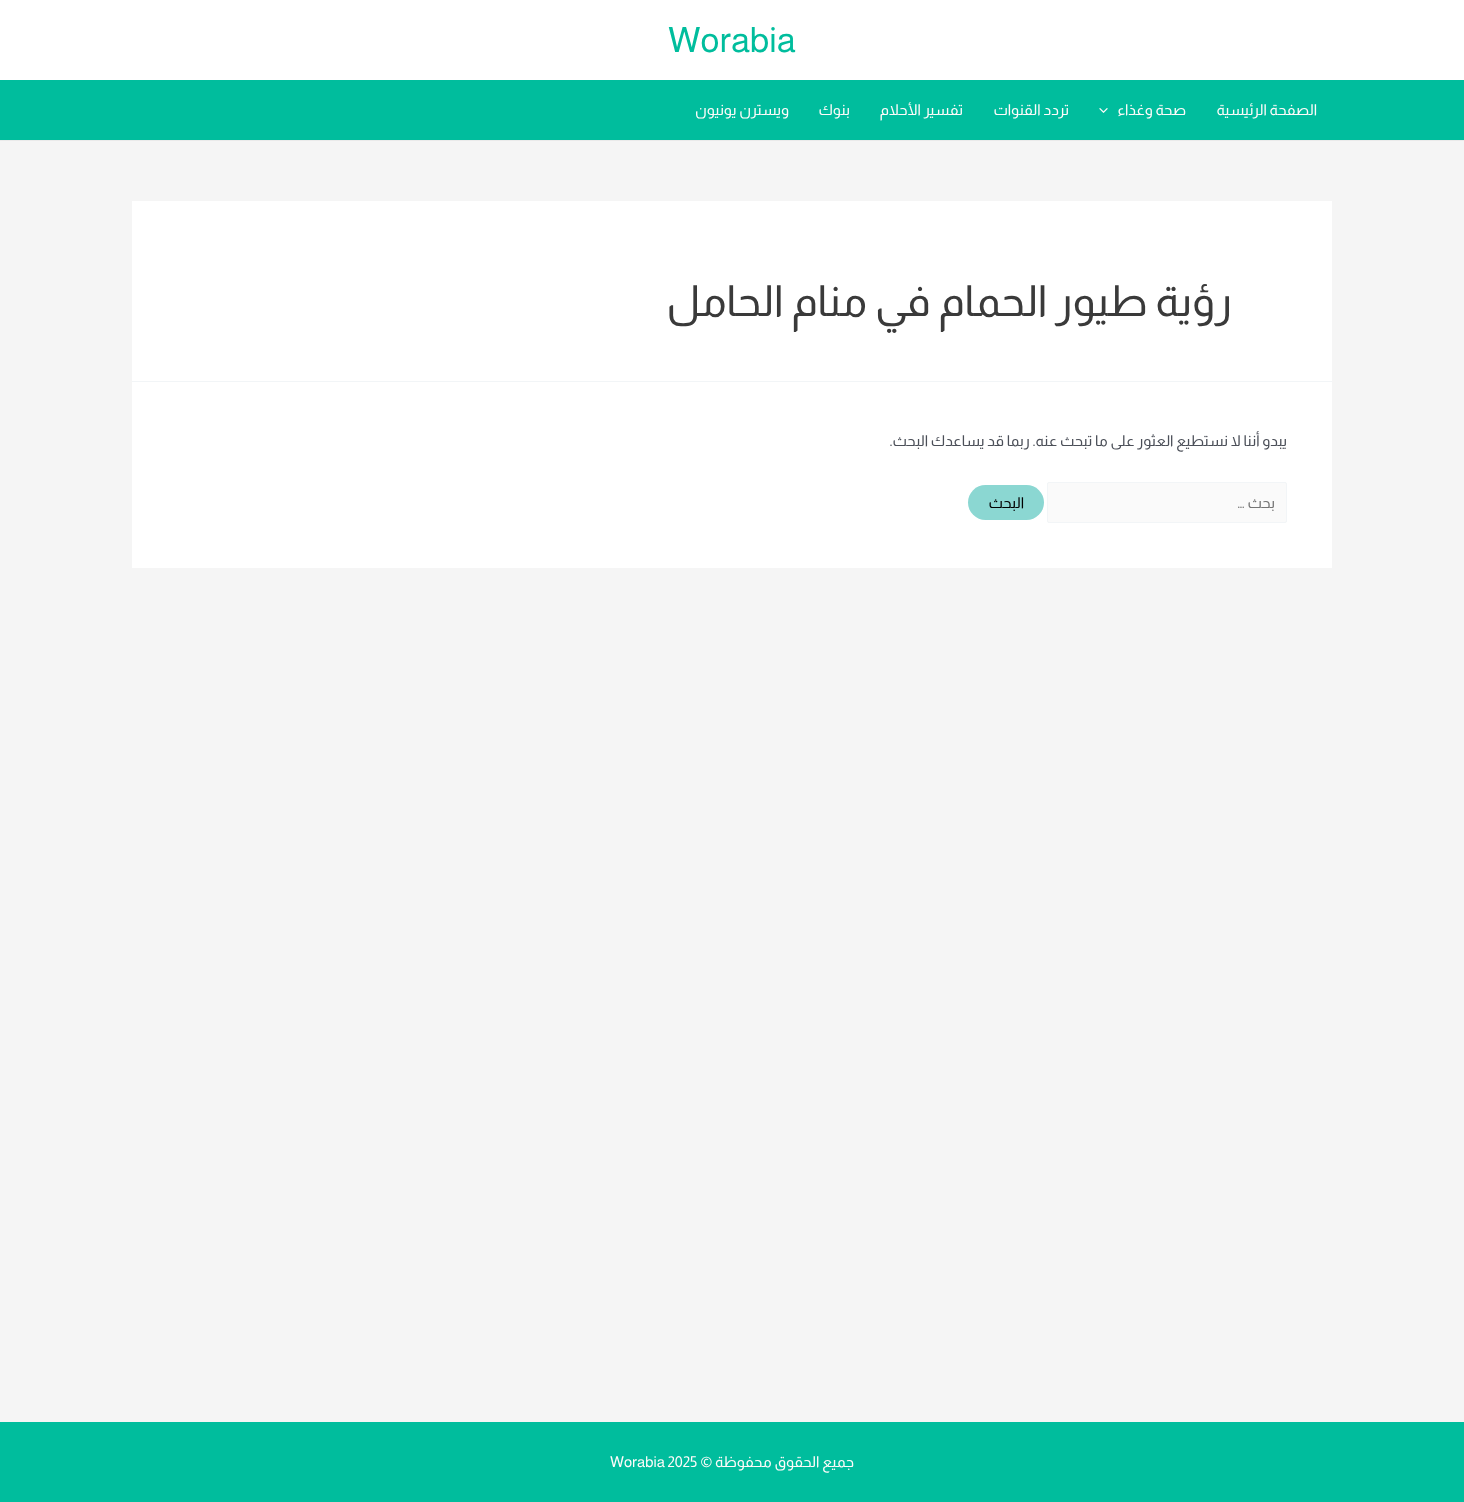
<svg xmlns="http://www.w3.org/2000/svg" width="1464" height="1502">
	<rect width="100%" height="100%" fill="#F5F5F5" />
	<rect x="0" y="0" width="1464" height="80" fill="#FFFFFF" />
	<text x="668" y="52" font-family="Almarai" font-size="35" fill="#00BD9D">Worabia</text>
	<rect x="0" y="80" width="1464" height="60" fill="#00BD9D" />
	<rect x="0" y="140" width="1464" height="1" fill="#EAEAEA" />
	<g font-family="Almarai" font-size="15" direction="rtl" fill="#FFFBFA">
		<text x="1317" y="115">الصفحة الرئيسية</text>
		<text x="1186" y="115">صحة وغذاء</text>
	</g>
	<image x="1099" y="108" width="9" height="5" href="assets/img1.png" />
	<g font-family="Almarai" font-size="15" direction="rtl" fill="#FFFBFA">
		<text x="1069" y="115">تردد القنوات</text>
		<text x="963" y="115">تفسير الأحلام</text>
		<text x="850" y="115">بنوك</text>
		<text x="789" y="115">ويسترن يونيون</text>
	</g>
	<rect x="132" y="201" width="1200" height="180" fill="#FFFFFF" />
	<rect x="132" y="381" width="1200" height="1" fill="#F2F5F7" />
	<text x="1232" y="316" font-family="Almarai" font-size="42.9" direction="rtl" fill="#3A3A3A">رؤية طيور الحمام في منام الحامل</text>
	<rect x="132" y="382" width="1200" height="186" fill="#FFFFFF" />
	<text x="1287" y="446" font-family="Almarai" font-size="15" direction="rtl" fill="#4B4F58">يبدو أننا لا نستطيع العثور على ما تبحث عنه. ربما قد يساعدك البحث.</text>
	<rect x="1047.5" y="482.5" width="239" height="40" rx="1.5" fill="#FAFAFA" stroke="#F2F5F7" />
	<text x="1275" y="508" font-family="Almarai" font-size="15" direction="rtl" fill="#757575">بحث …</text>
	<rect x="968" y="485" width="76" height="35" rx="17.5" fill="#8BD7D2" />
	<text x="1024" y="508" font-family="Almarai" font-size="15" direction="rtl" fill="#000000">البحث</text>
	<rect x="0" y="1422" width="1464" height="80" fill="#00BD9D" />
	<text x="854" y="1467" font-family="Almarai" font-size="15" direction="rtl" fill="#FFFBFA">جميع الحقوق محفوظة ©</text>
	<text x="610" y="1467" font-family="Almarai" font-size="15" fill="#FFFBFA">Worabia 2025</text>
</svg>
